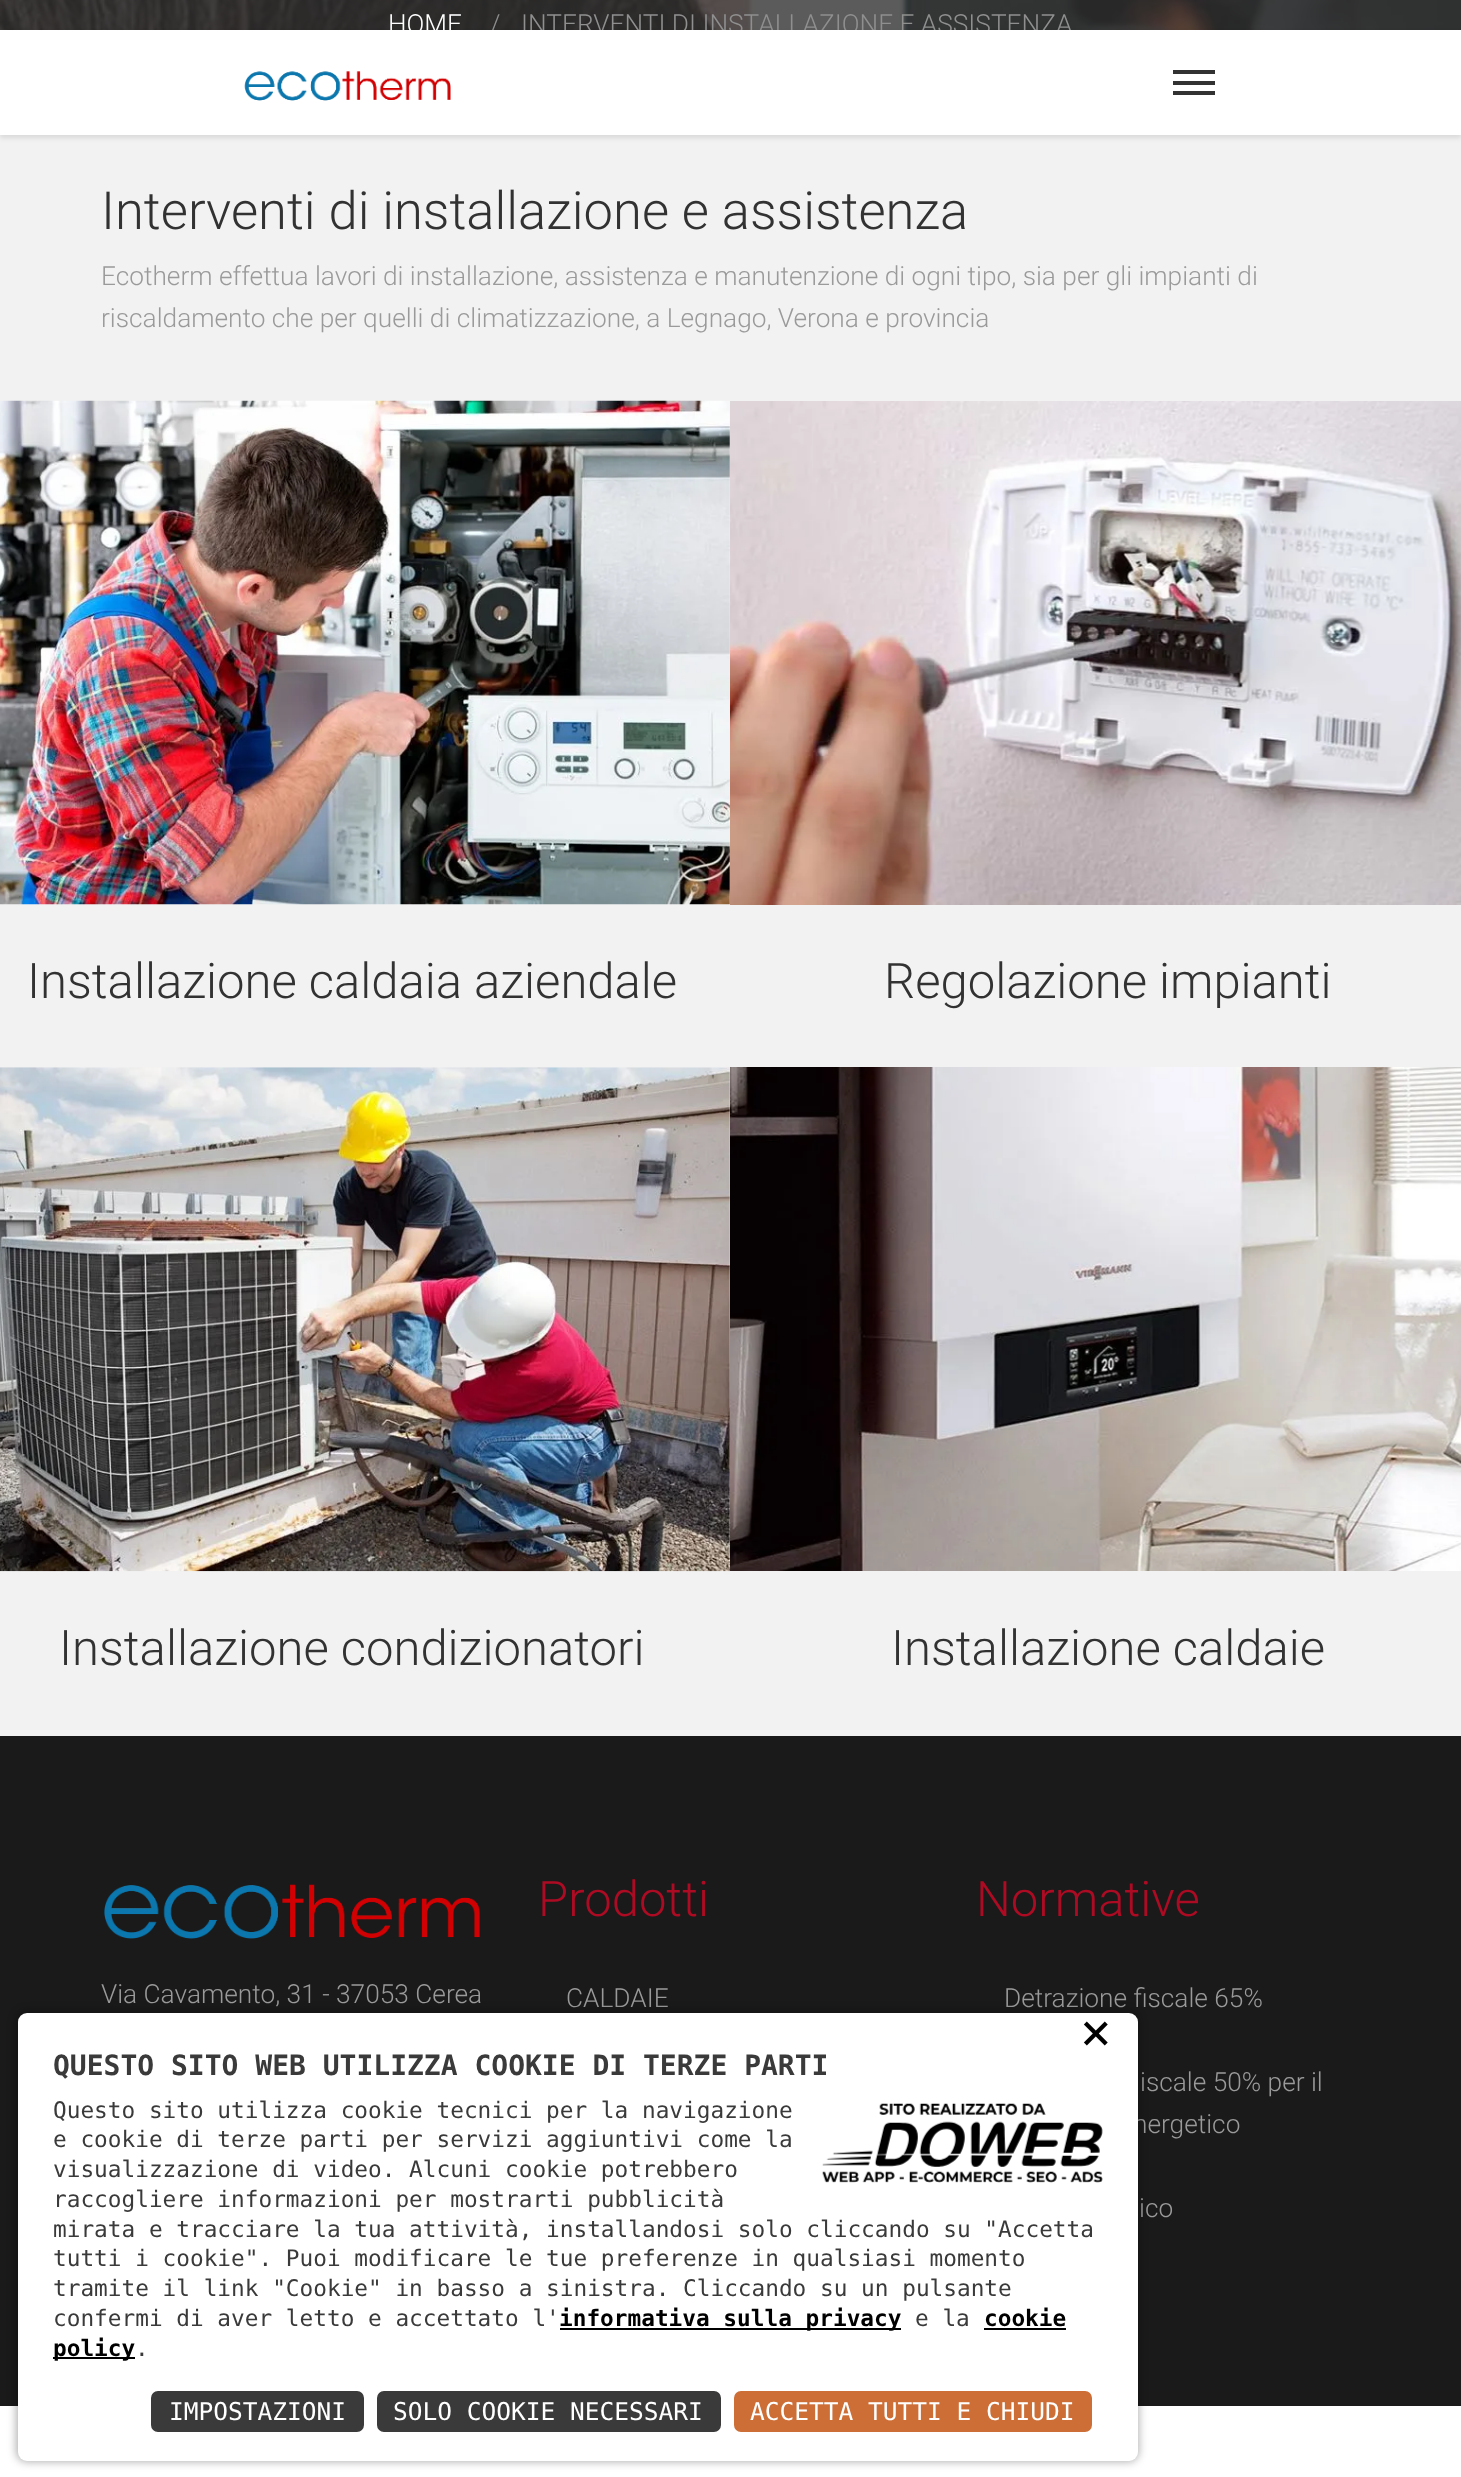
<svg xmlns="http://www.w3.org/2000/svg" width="1461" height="2477">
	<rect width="100%" height="100%" fill="#FFFFFF" />
	<image x="0" y="0" width="1461" height="30" href="assets/img1.png" />
	<text x="388" y="33" font-family="Roboto" font-size="26.25" font-weight="300" fill="#FFFFFF">HOME</text>
	<g font-family="Roboto" font-size="26.25" font-weight="300" fill="#8F8F8F">
		<text x="490" y="33">/</text>
		<text x="521" y="33">INTERVENTI DI INSTALLAZIONE E ASSISTENZA</text>
	</g>
	<rect x="0" y="135" width="1461" height="1601" fill="#F2F2F2" />
	<rect x="0" y="33" width="1461" height="105" fill="#000000" fill-opacity="0.1" filter="blur(2.5px)" />
	<rect x="0" y="30" width="1461" height="105" fill="#FFFFFF" />
	<image x="244" y="71" width="207" height="30" href="assets/img2.png" />
	<rect x="1173" y="81" width="42" height="4" fill="#323232" />
	<rect x="1173" y="70" width="42" height="4" fill="#323232" />
	<rect x="1173" y="91" width="42" height="4" fill="#323232" />
	<text x="101" y="229" font-family="Roboto" font-size="52.5" font-weight="300" fill="#323232">Interventi di installazione e assistenza</text>
	<g font-family="Roboto" font-size="26.25" font-weight="300" fill="#9A9A9A">
		<text x="101" y="285">Ecotherm effettua lavori di installazione, assistenza e manutenzione di ogni tipo, sia per gli impianti di</text>
		<text x="101" y="327">riscaldamento che per quelli di climatizzazione, a Legnago, Verona e provincia</text>
	</g>
	<image x="0" y="400" width="730" height="505" href="assets/img3.png" />
	<text x="27" y="998" font-family="Roboto" font-size="49" font-weight="300" fill="#323232">Installazione caldaia aziendale</text>
	<image x="730" y="401" width="731" height="504" href="assets/img4.png" />
	<text x="884" y="998" font-family="Roboto" font-size="49" font-weight="300" fill="#323232">Regolazione impianti</text>
	<image x="0" y="1067" width="730" height="505" href="assets/img5.png" />
	<text x="59" y="1665" font-family="Roboto" font-size="49" font-weight="300" fill="#323232">Installazione condizionatori</text>
	<image x="730" y="1067" width="731" height="504" href="assets/img6.png" />
	<text x="891" y="1665" font-family="Roboto" font-size="49" font-weight="300" fill="#323232">Installazione caldaie</text>
	<rect x="0" y="1736" width="1461" height="670" fill="#1A1A1A" />
	<image x="104" y="1884" width="377" height="55" href="assets/img7.png" />
	<text x="101" y="2003" font-family="Roboto" font-size="26.25" font-weight="300" fill="#9A9A9A">Via Cavamento, 31 - 37053 Cerea</text>
	<text x="538" y="1916" font-family="Roboto" font-size="49" font-weight="300" fill="#AD0B23">Prodotti</text>
	<text x="566" y="2007" font-family="Roboto" font-size="26.25" font-weight="300" fill="#9A9A9A">CALDAIE</text>
	<text x="976" y="1916" font-family="Roboto" font-size="49" font-weight="300" fill="#AD0B23">Normative</text>
	<g font-family="Roboto" font-size="26.25" font-weight="300" fill="#9A9A9A">
		<text x="1004" y="2007">Detrazione fiscale 65%</text>
		<text x="1140" y="2091">iscale 50% per il</text>
		<text x="1133" y="2133">nergetico</text>
		<text x="1139" y="2217">ico</text>
	</g>
	<rect x="16" y="2011" width="1123" height="451" rx="11" fill="#000000" fill-opacity="0.3" filter="blur(4.5px)" />
	<rect x="18" y="2013" width="1120" height="448" rx="9" fill="#FFFFFF" />
	<text x="1080" y="2050" font-family="DejaVu Sans Mono" font-size="52.5" fill="#000000">×</text>
	<text x="53" y="2075" font-family="DejaVu Sans Mono" font-size="28" font-weight="700" fill="#3A3A3B">QUESTO SITO WEB UTILIZZA COOKIE DI TERZE PARTI</text>
	<text x="53" y="2118" font-family="DejaVu Sans Mono" font-size="22.75" fill="#3A3A3B">Questo sito utilizza cookie tecnici per la navigazione</text>
	<image x="822" y="2103" width="281" height="80" href="assets/img8.png" />
	<g font-family="DejaVu Sans Mono" font-size="22.75" fill="#3A3A3B">
		<text x="53" y="2147">e cookie di terze parti per servizi aggiuntivi come la</text>
		<text x="53" y="2177">visualizzazione di video. Alcuni cookie potrebbero</text>
		<text x="53" y="2207">raccogliere informazioni per mostrarti pubblicità</text>
		<text x="53" y="2237">mirata e tracciare la tua attività, installandosi solo cliccando su "Accetta</text>
		<text x="53" y="2266">tutti i cookie". Puoi modificare le tue preferenze in qualsiasi momento</text>
		<text x="53" y="2296">tramite il link "Cookie" in basso a sinistra. Cliccando su un pulsante</text>
		<text x="53" y="2326">confermi di aver letto e accettato l'</text>
	</g>
	<rect x="560" y="2328" width="341" height="2" fill="#000000" />
	<text x="559" y="2326" font-family="DejaVu Sans Mono" font-size="22.75" font-weight="700" fill="#000000">informativa sulla privacy</text>
	<text x="915" y="2326" font-family="DejaVu Sans Mono" font-size="22.75" fill="#3A3A3B">e la</text>
	<text x="984" y="2326" font-family="DejaVu Sans Mono" font-size="22.75" font-weight="700" fill="#000000">cookie</text>
	<rect x="984" y="2328" width="82" height="2" fill="#000000" />
	<rect x="53" y="2357" width="82" height="2" fill="#000000" />
	<text x="53" y="2356" font-family="DejaVu Sans Mono" font-size="22.75" font-weight="700" fill="#000000">policy</text>
	<text x="135" y="2356" font-family="DejaVu Sans Mono" font-size="22.75" fill="#3A3A3B">.</text>
	<rect x="150" y="2390" width="215" height="43" rx="8" fill="#3A3A3B" stroke="#FFFFFF" stroke-width="2" />
	<text x="169" y="2420" font-family="DejaVu Sans Mono" font-size="24.5" fill="#FFFFFF">IMPOSTAZIONI</text>
	<rect x="376" y="2390" width="346" height="43" rx="8" fill="#3A3A3B" stroke="#FFFFFF" stroke-width="2" />
	<text x="393" y="2420" font-family="DejaVu Sans Mono" font-size="24.5" fill="#FFFFFF">SOLO COOKIE NECESSARI</text>
	<rect x="733" y="2390" width="360" height="43" rx="8" fill="#CD6E37" stroke="#FFFFFF" stroke-width="2" />
	<text x="750" y="2420" font-family="DejaVu Sans Mono" font-size="24.5" fill="#FFFFFF">ACCETTA TUTTI E CHIUDI</text>
</svg>
